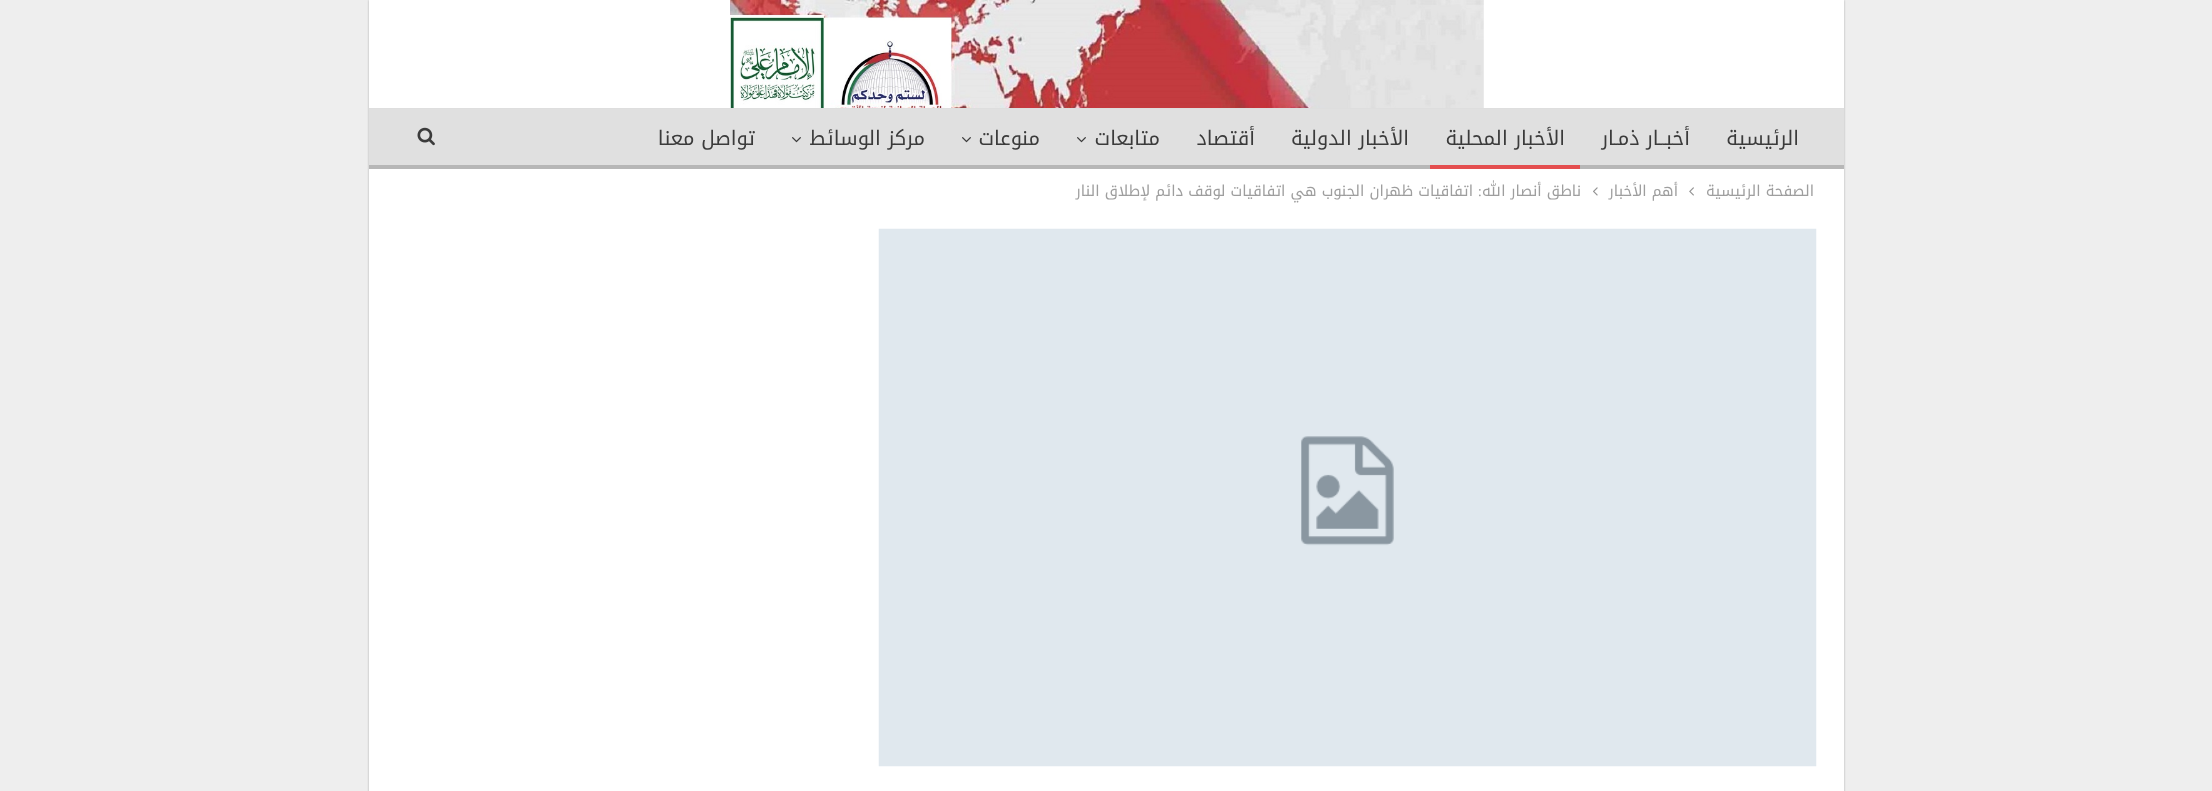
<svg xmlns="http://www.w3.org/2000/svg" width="2212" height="791">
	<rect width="100%" height="100%" fill="#EEEEEE" />
	<rect x="369" y="0" width="1475" height="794" fill="#000000" fill-opacity="0.27" filter="blur(1px)" />
	<rect x="369" y="0" width="1475" height="791" fill="#FFFFFF" />
	<image x="730" y="0" width="754" height="108" href="assets/img1.png" />
	<rect x="369" y="109" width="1475" height="56" fill="#E0E0E0" />
	<rect x="369" y="108" width="1475" height="1" fill="#DEDEDE" />
	<rect x="369" y="165" width="1475" height="4" fill="#B7B7B7" />
	<g font-family="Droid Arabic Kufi" font-size="20" direction="rtl" fill="#3B3B3B">
		<text x="1799" y="145">الرئيسية</text>
		<text x="1690" y="145">أخبــار ذمـار</text>
		<text x="1565" y="145">الأخبار المحلية</text>
	</g>
	<rect x="1430" y="165" width="150" height="4" fill="#E44E4F" />
	<g font-family="Droid Arabic Kufi" font-size="20" direction="rtl" fill="#3B3B3B">
		<text x="1409" y="145">الأخبار الدولية</text>
		<text x="1255" y="145">أقتصاد</text>
		<text x="1160" y="145">متابعات</text>
	</g>
	<image x="1077" y="137" width="9" height="6" href="assets/img2.png" />
	<text x="1040" y="145" font-family="Droid Arabic Kufi" font-size="20" direction="rtl" fill="#3B3B3B">منوعات</text>
	<image x="962" y="137" width="9" height="6" href="assets/img2.png" />
	<text x="925" y="145" font-family="Droid Arabic Kufi" font-size="20" direction="rtl" fill="#3B3B3B">مركز الوسائط</text>
	<image x="792" y="137" width="9" height="6" href="assets/img2.png" />
	<text x="755" y="145" font-family="Droid Arabic Kufi" font-size="20" direction="rtl" fill="#3B3B3B">تواصل معنا</text>
	<image x="417" y="127" width="18" height="19" href="assets/img3.png" />
	<text x="1814" y="196" font-family="Droid Arabic Kufi" font-size="15" direction="rtl" fill="#9E9E9E">الصفحة الرئيسية</text>
	<image x="1689" y="187" width="5" height="9" href="assets/img4.png" />
	<text x="1678" y="196" font-family="Droid Arabic Kufi" font-size="15" direction="rtl" fill="#9E9E9E">أهم الأخبار</text>
	<image x="1593" y="187" width="5" height="9" href="assets/img5.png" />
	<text x="1581" y="196" font-family="Droid Arabic Kufi" font-size="15" direction="rtl" fill="#9E9E9E">ناطق أنصار الله</text>
	<text x="1482" y="196" font-family="Liberation Serif" font-size="15" direction="rtl" fill="#9E9E9E">:</text>
	<text x="1473" y="196" font-family="Droid Arabic Kufi" font-size="15" direction="rtl" fill="#9E9E9E">اتفاقيات ظهران الجنوب هي اتفاقيات لوقف دائم لإطلاق النار</text>
	<image x="878" y="228" width="939" height="539" href="assets/img6.png" />
</svg>
